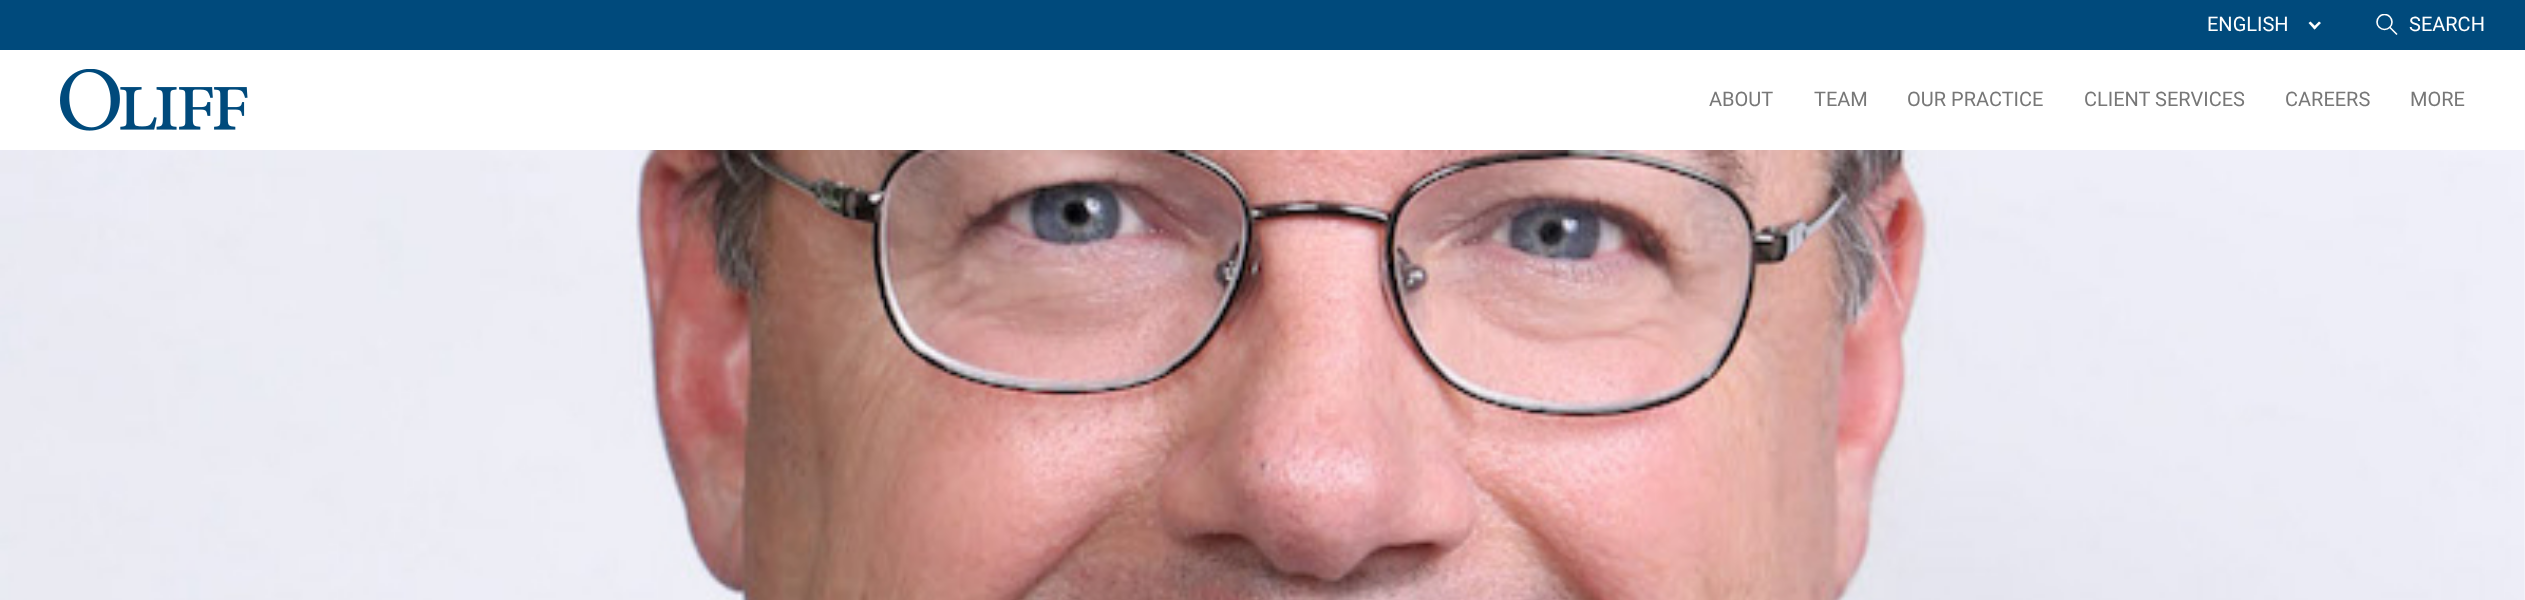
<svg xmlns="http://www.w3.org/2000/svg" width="2525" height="600">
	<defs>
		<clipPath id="clip1"><rect x="2376" y="14" width="22" height="21" /></clipPath>
	</defs>
	<rect width="100%" height="100%" fill="#FFFFFF" />
	<rect x="0" y="0" width="2525" height="50" fill="#004A7C" />
	<text x="2207" y="31" font-family="Roboto" font-size="20" fill="#FFFFFF">ENGLISH</text>
	<path d="M2319 21.5L2321 23L2314.5 29.5L2313 27.5Z" fill="#FFFFFF" />
	<path d="M2310.5 21.5L2316.5 27.5L2314.5 29.5L2308.5 23Z" fill="#FFFFFF" />
	<g clip-path="url(#clip1)">
		<circle cx="2384.5" cy="22" r="7.5" fill="none" stroke="#FFFFFF" stroke-width="1.6" />
	</g>
	<path d="M2389.5 27L2397 34.5" fill="none" stroke="#FFFFFF" stroke-width="1.6" />
	<text x="2409" y="31" font-family="Roboto" font-size="20" fill="#FFFFFF">SEARCH</text>
	<image x="60" y="69" width="188" height="62" href="assets/img1.png" />
	<g font-family="Roboto" font-size="20" fill="#777777">
		<text x="1709" y="106">ABOUT</text>
		<text x="1814" y="106">TEAM</text>
		<text x="1907" y="106">OUR PRACTICE</text>
		<text x="2084" y="106">CLIENT SERVICES</text>
		<text x="2285" y="106">CAREERS</text>
		<text x="2410" y="106">MORE</text>
	</g>
	<image x="0" y="150" width="2525" height="450" href="assets/img2.png" />
</svg>
